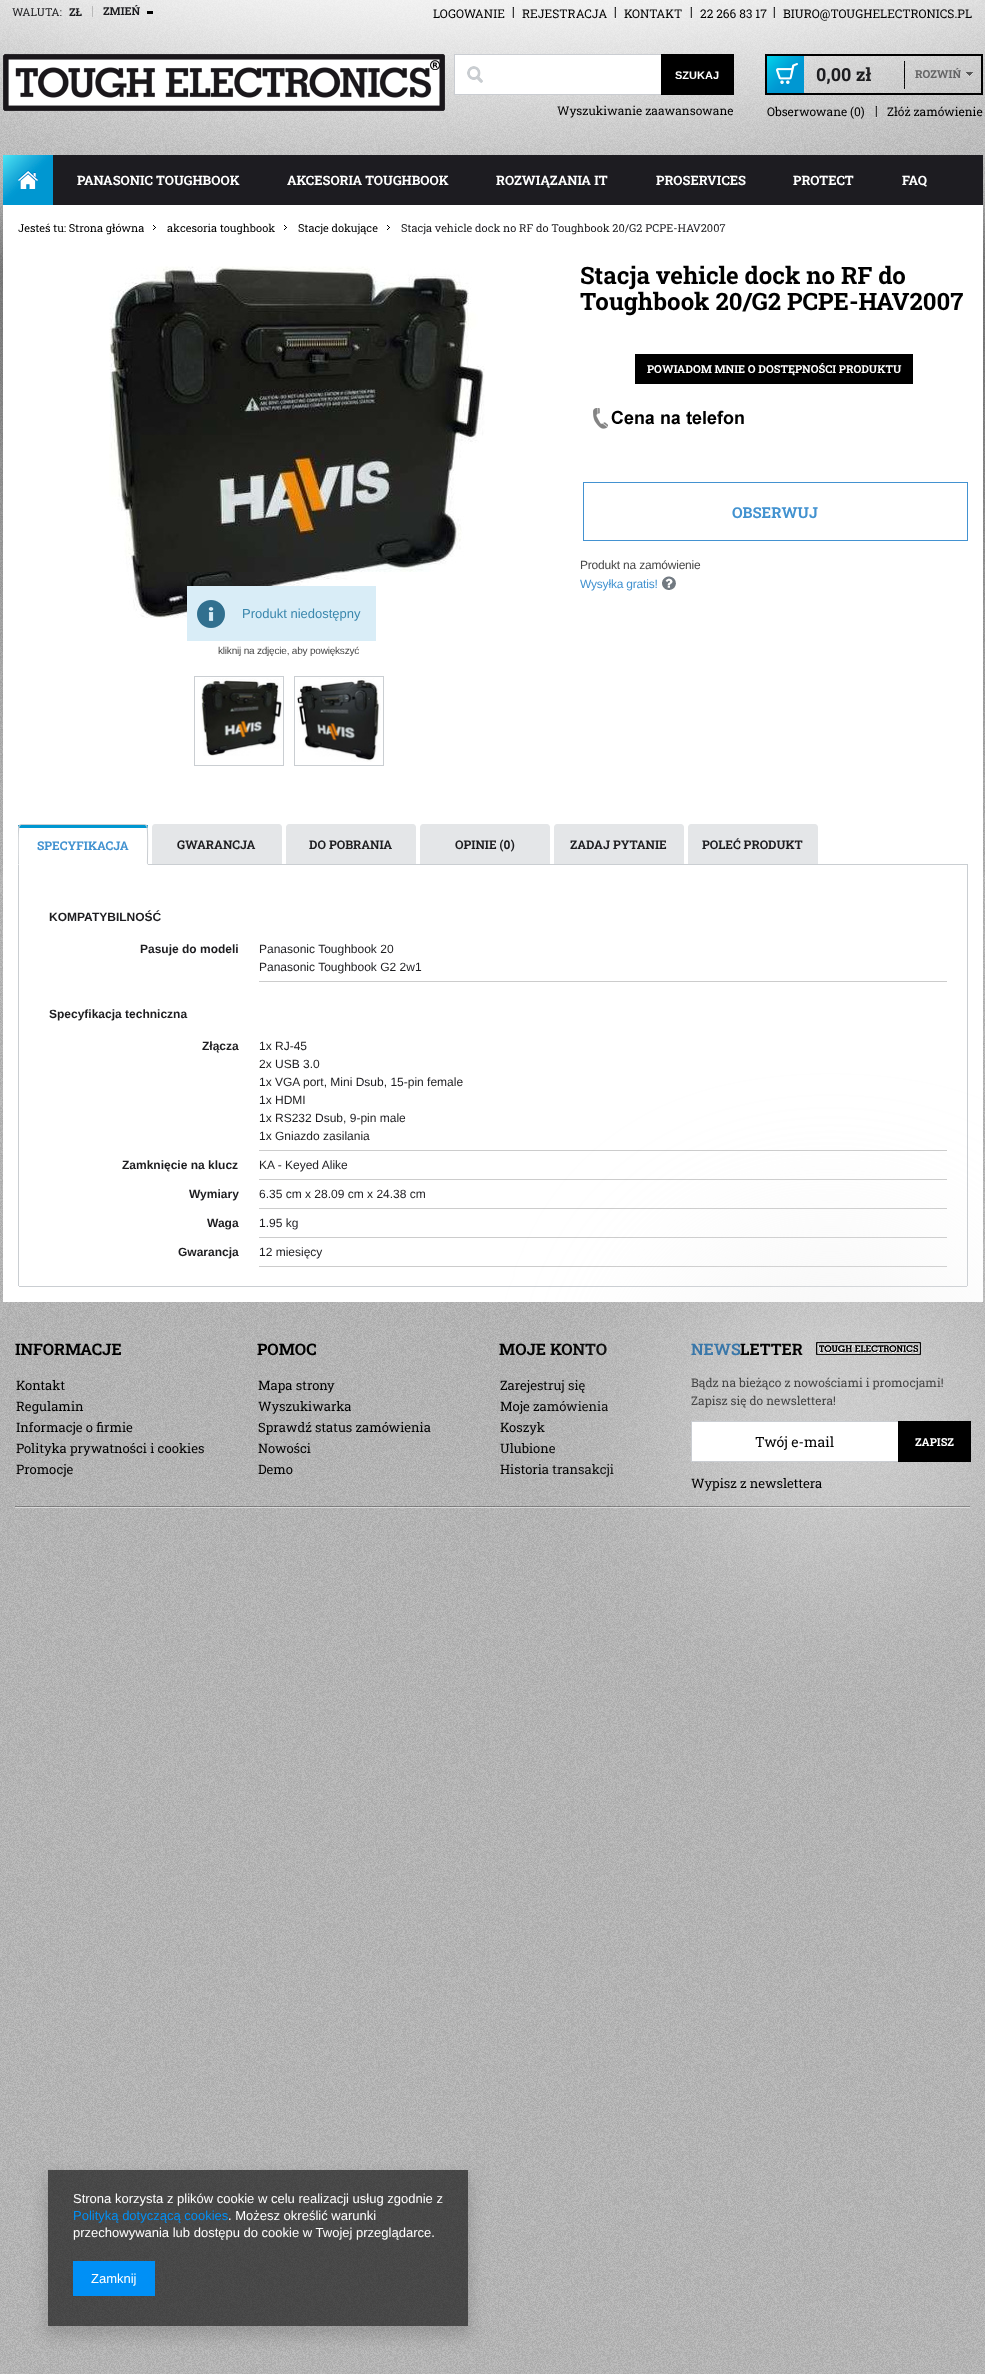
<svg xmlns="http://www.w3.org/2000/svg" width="985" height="2374">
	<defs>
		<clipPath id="clip1"><path d="M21 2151H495V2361H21ZM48 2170H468V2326H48Z" clip-rule="evenodd" /></clipPath>
	</defs>
	<rect width="100%" height="100%" fill="#FFFFFF" />
	<image x="0" y="0" width="985" height="2374" href="assets/img1.png" />
	<image x="0" y="0" width="985" height="875" href="assets/img2.png" />
	<rect x="92" y="6" width="1" height="11" fill="#B9B9B9" />
	<text x="12" y="16" font-family="Roboto Slab" font-size="11" fill="#1D1D20">WALUTA:</text>
	<text x="69" y="16" font-family="Roboto Slab" font-size="11" font-weight="700" fill="#1D1D20">ZŁ</text>
	<rect x="147" y="11" width="6" height="3" fill="#000000" />
	<text x="103" y="15" font-family="Roboto Slab" font-size="11" font-weight="700" fill="#1D1D20">ZMIEŃ</text>
	<text x="433" y="18" font-family="Roboto Slab" font-size="12" fill="#000000">LOGOWANIE</text>
	<image x="512" y="7" width="2" height="12" href="assets/img3.png" />
	<text x="522" y="18" font-family="Roboto Slab" font-size="12" fill="#000000">REJESTRACJA</text>
	<image x="614" y="7" width="2" height="12" href="assets/img4.png" />
	<text x="624" y="18" font-family="Roboto Slab" font-size="12" fill="#000000">KONTAKT</text>
	<image x="690" y="7" width="2" height="12" href="assets/img5.png" />
	<text x="700" y="18" font-family="Roboto Slab" font-size="12" fill="#000000">22 266 83 17</text>
	<image x="773" y="7" width="2" height="12" href="assets/img6.png" />
	<text x="783" y="18" font-family="Roboto Slab" font-size="12" fill="#000000">BIURO@TOUGHELECTRONICS.PL</text>
	<image x="3" y="54" width="442" height="57" href="assets/img7.png" />
	<rect x="455" y="55" width="206" height="39" fill="#FFFFFF" />
	<image x="467" y="66" width="16" height="17" href="assets/img8.png" />
	<rect x="454" y="54" width="207" height="1" fill="#CACDD2" />
	<rect x="454" y="94" width="207" height="1" fill="#CACDD2" />
	<rect x="454" y="54" width="1" height="41" fill="#CACDD2" />
	<rect x="661" y="54" width="73" height="41" fill="#000000" />
	<text x="675" y="79" font-family="Liberation Sans" font-size="11" font-weight="700" fill="#FFFFFF">SZUKAJ</text>
	<text x="557" y="115" font-family="Roboto Slab" font-size="12" fill="#000000">Wyszukiwanie zaawansowane</text>
	<rect x="766" y="55" width="216" height="39" fill="none" stroke="#000000" stroke-width="2" />
	<image x="904" y="61" width="1" height="28" href="assets/img9.png" />
	<image x="767" y="56" width="37" height="37" href="assets/img10.png" />
	<text x="816" y="81" font-family="Roboto Slab" font-size="18" font-weight="700" fill="#1D1D20">0,00 zł</text>
	<image x="966" y="72" width="7" height="5" href="assets/img11.png" />
	<text x="915" y="78" font-family="Roboto Slab" font-size="11" font-weight="700" fill="#646465">ROZWIŃ</text>
	<text x="767" y="116" font-family="Roboto Slab" font-size="12" fill="#000000">Obserwowane (0)</text>
	<image x="875" y="106" width="2" height="12" href="assets/img12.png" />
	<text x="887" y="116" font-family="Roboto Slab" font-size="12" fill="#000000">Złóż zamówienie</text>
	<rect x="53" y="155" width="930" height="50" fill="#1D1C21" />
	<image x="3" y="155" width="50" height="50" href="assets/img13.png" />
	<g font-family="Roboto Slab" font-size="13" font-weight="700" fill="#FFFFFF">
		<text x="77" y="185">PANASONIC TOUGHBOOK</text>
		<text x="287" y="185">AKCESORIA TOUGHBOOK</text>
		<text x="496" y="185">ROZWIĄZANIA IT</text>
		<text x="656" y="185">PROSERVICES</text>
		<text x="793" y="185">PROTECT</text>
		<text x="902" y="185">FAQ</text>
	</g>
	<rect x="3" y="205" width="980" height="1097" fill="#FFFFFF" />
	<text x="18" y="232" font-family="Roboto Slab" font-size="11" fill="#000000">Jesteś tu: Strona główna</text>
	<image x="153" y="225" width="3" height="5" href="assets/img14.png" />
	<text x="167" y="232" font-family="Roboto Slab" font-size="11" fill="#000000">akcesoria toughbook</text>
	<image x="284" y="225" width="3" height="5" href="assets/img14.png" />
	<text x="298" y="232" font-family="Roboto Slab" font-size="11" fill="#000000">Stacje dokujące</text>
	<image x="387" y="225" width="3" height="5" href="assets/img14.png" />
	<text x="401" y="232" font-family="Roboto Slab" font-size="11" fill="#1D1D20">Stacja vehicle dock no RF do Toughbook 20/G2 PCPE-HAV2007</text>
	<g font-family="Roboto Slab" font-size="24" font-weight="700" fill="#000000">
		<text x="580" y="284">Stacja vehicle dock no RF do</text>
		<text x="580" y="310">Toughbook 20/G2 PCPE-HAV2007</text>
	</g>
	<rect x="635" y="354" width="278" height="30" fill="#000000" />
	<text x="647" y="373" font-family="Roboto Slab" font-size="11" font-weight="700" fill="#FFFFFF">POWIADOM MNIE O DOSTĘPNOŚCI PRODUKTU</text>
	<image x="593" y="408" width="151" height="21" href="assets/img15.png" />
	<rect x="583.5" y="482.5" width="384" height="58" fill="none" stroke="#4392D1" />
	<text x="732" y="518" font-family="Roboto Slab" font-size="15" font-weight="700" fill="#4292D0">OBSERWUJ</text>
	<text x="580" y="569" font-family="Liberation Sans" font-size="12" letter-spacing="-0.2" fill="#474747">Produkt na zamówienie</text>
	<text x="580" y="588" font-family="Liberation Sans" font-size="12" letter-spacing="-0.2" fill="#4292D0">Wysyłka gratis!</text>
	<image x="662" y="576" width="14" height="14" href="assets/img16.png" />
	<image x="109" y="266" width="376" height="352" href="assets/img17.png" />
	<text x="218" y="654" font-family="Liberation Sans" font-size="10" letter-spacing="-0.2" fill="#474747">kliknij na zdjęcie, aby powiększyć</text>
	<rect x="194.5" y="676.5" width="89" height="89" fill="none" stroke="#CACED2" />
	<image x="200" y="678" width="82" height="78" href="assets/img18.png" />
	<rect x="294.5" y="676.5" width="89" height="89" fill="none" stroke="#CACED2" />
	<image x="297" y="678" width="84" height="84" href="assets/img19.png" />
	<rect x="187" y="586" width="189" height="55" fill="#D9EDF7" />
	<image x="197" y="600" width="28" height="28" href="assets/img20.png" />
	<text x="242" y="618" font-family="Liberation Sans" font-size="13" fill="#3A87AD">Produkt niedostępny</text>
	<rect x="148" y="864" width="820" height="1" fill="#CACED2" />
	<rect x="18" y="825" width="130" height="3" fill="#0097D1" />
	<path d="M21 824L19 825L20 826L21 825H145L146 826L147 825L145 824Z" fill="#CACED2" />
	<path d="M148 865C148 860 149 827 147 825L146 826C148 827 147 859 147 864Z" fill="#CACED2" />
	<path d="M148 865L147 864H19L18 865Z" fill="#FFFFFF" />
	<path d="M18 865L19 864C19 859 18 827 20 826L19 825L18 827Z" fill="#CACED2" />
	<text x="37" y="850" font-family="Roboto Slab" font-size="12" font-weight="700" fill="#4292D0">SPECYFIKACJA</text>
	<path d="M155 824H279C280.5 824 282 825.5 282 827V865H152V827C152 825.5 153.5 824 155 824Z" fill="#E4E6E8" />
	<rect x="152" y="864" width="130" height="1" fill="#CACED2" />
	<text x="177" y="849" font-family="Roboto Slab" font-size="12" font-weight="700" fill="#1D1D20">GWARANCJA</text>
	<path d="M289 824H413C414.5 824 416 825.5 416 827V865H286V827C286 825.5 287.5 824 289 824Z" fill="#E4E6E8" />
	<rect x="286" y="864" width="130" height="1" fill="#CACED2" />
	<text x="309" y="849" font-family="Roboto Slab" font-size="12" font-weight="700" fill="#1D1D20">DO POBRANIA</text>
	<path d="M423 824H547C548.5 824 550 825.5 550 827V865H420V827C420 825.5 421.5 824 423 824Z" fill="#E4E6E8" />
	<rect x="420" y="864" width="130" height="1" fill="#CACED2" />
	<text x="455" y="849" font-family="Roboto Slab" font-size="12" font-weight="700" fill="#1D1D20">OPINIE (0)</text>
	<path d="M557 824H681C682.5 824 684 825.5 684 827V865H554V827C554 825.5 555.5 824 557 824Z" fill="#E4E6E8" />
	<rect x="554" y="864" width="130" height="1" fill="#CACED2" />
	<text x="570" y="849" font-family="Roboto Slab" font-size="12" font-weight="700" fill="#1D1D20">ZADAJ PYTANIE</text>
	<path d="M691 824H815C816.5 824 818 825.5 818 827V865H688V827C688 825.5 689.5 824 691 824Z" fill="#E4E6E8" />
	<rect x="688" y="864" width="130" height="1" fill="#CACED2" />
	<text x="702" y="849" font-family="Roboto Slab" font-size="12" font-weight="700" fill="#1D1D20">POLEĆ PRODUKT</text>
	<rect x="967" y="865" width="1" height="421" fill="#CACED2" />
	<rect x="19" y="1286" width="948" height="1" fill="#CACED2" />
	<rect x="18" y="865" width="1" height="421" fill="#CACED2" />
	<text x="49" y="921" font-family="Liberation Sans" font-size="12" font-weight="700" fill="#1D1D20">KOMPATYBILNOŚĆ</text>
	<rect x="258" y="981" width="689" height="1" fill="#CCCCCC" />
	<rect x="258" y="981" width="1" height="1" fill="#FFFFFF" />
	<text x="140" y="953" font-family="Liberation Sans" font-size="12" font-weight="700" fill="#1D1D20">Pasuje do modeli</text>
	<g font-family="Liberation Sans" font-size="12" fill="#1D1D20">
		<text x="259" y="953">Panasonic Toughbook 20</text>
		<text x="259" y="971">Panasonic Toughbook G2 2w1</text>
	</g>
	<text x="49" y="1018" font-family="Liberation Sans" font-size="12" font-weight="700" fill="#1D1D20">Specyfikacja techniczna</text>
	<rect x="258" y="1150" width="689" height="1" fill="#CCCCCC" />
	<rect x="258" y="1150" width="1" height="1" fill="#FFFFFF" />
	<text x="202" y="1050" font-family="Liberation Sans" font-size="12" font-weight="700" fill="#1D1D20">Złącza</text>
	<g font-family="Liberation Sans" font-size="12" fill="#1D1D20">
		<text x="259" y="1050">1x RJ-45</text>
		<text x="259" y="1068">2x USB 3.0</text>
		<text x="259" y="1086">1x VGA port, Mini Dsub, 15-pin female</text>
		<text x="259" y="1104">1x HDMI</text>
		<text x="259" y="1122">1x RS232 Dsub, 9-pin male</text>
		<text x="259" y="1140">1x Gniazdo zasilania</text>
	</g>
	<rect x="258" y="1179" width="689" height="1" fill="#CCCCCC" />
	<rect x="258" y="1179" width="1" height="1" fill="#FFFFFF" />
	<text x="122" y="1169" font-family="Liberation Sans" font-size="12" font-weight="700" fill="#1D1D20">Zamknięcie na klucz</text>
	<text x="259" y="1169" font-family="Liberation Sans" font-size="12" fill="#1D1D20">KA - Keyed Alike</text>
	<rect x="258" y="1208" width="689" height="1" fill="#CCCCCC" />
	<rect x="258" y="1208" width="1" height="1" fill="#FFFFFF" />
	<text x="189" y="1198" font-family="Liberation Sans" font-size="12" font-weight="700" fill="#1D1D20">Wymiary</text>
	<text x="259" y="1198" font-family="Liberation Sans" font-size="12" fill="#1D1D20">6.35 cm x 28.09 cm x 24.38 cm</text>
	<rect x="258" y="1237" width="689" height="1" fill="#CCCCCC" />
	<rect x="258" y="1237" width="1" height="1" fill="#FFFFFF" />
	<text x="207" y="1227" font-family="Liberation Sans" font-size="12" font-weight="700" fill="#1D1D20">Waga</text>
	<text x="259" y="1227" font-family="Liberation Sans" font-size="12" fill="#1D1D20">1.95 kg</text>
	<rect x="258" y="1266" width="689" height="1" fill="#CCCCCC" />
	<rect x="258" y="1266" width="1" height="1" fill="#FFFFFF" />
	<text x="178" y="1256" font-family="Liberation Sans" font-size="12" font-weight="700" fill="#1D1D20">Gwarancja</text>
	<text x="259" y="1256" font-family="Liberation Sans" font-size="12" fill="#1D1D20">12 miesięcy</text>
	<text x="15" y="1355" font-family="Roboto Slab" font-size="16" font-weight="700" fill="#000000">INFORMACJE</text>
	<g font-family="Roboto Slab" font-size="13" fill="#000000">
		<text x="16" y="1390">Kontakt</text>
		<text x="16" y="1411">Regulamin</text>
		<text x="16" y="1432">Informacje o firmie</text>
		<text x="16" y="1453">Polityka prywatności i cookies</text>
		<text x="16" y="1474">Promocje</text>
	</g>
	<text x="257" y="1355" font-family="Roboto Slab" font-size="16" font-weight="700" fill="#000000">POMOC</text>
	<g font-family="Roboto Slab" font-size="13" fill="#000000">
		<text x="258" y="1390">Mapa strony</text>
		<text x="258" y="1411">Wyszukiwarka</text>
		<text x="258" y="1432">Sprawdź status zamówienia</text>
		<text x="258" y="1453">Nowości</text>
		<text x="258" y="1474">Demo</text>
	</g>
	<text x="499" y="1355" font-family="Roboto Slab" font-size="16" font-weight="700" fill="#000000">MOJE KONTO</text>
	<g font-family="Roboto Slab" font-size="13" fill="#000000">
		<text x="500" y="1390">Zarejestruj się</text>
		<text x="500" y="1411">Moje zamówienia</text>
		<text x="500" y="1432">Koszyk</text>
		<text x="500" y="1453">Ulubione</text>
		<text x="500" y="1474">Historia transakcji</text>
	</g>
	<rect x="667" y="1248" width="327" height="327" rx="163.5" fill="#EBEBEB" fill-opacity="0.5" filter="blur(81.5px)" />
	<image x="816" y="1342" width="105" height="13" href="assets/img21.png" />
	<text x="691" y="1355" font-family="Roboto Slab" font-size="16" font-weight="700" fill="#3977A9">NEWS</text>
	<text x="740" y="1355" font-family="Roboto Slab" font-size="16" font-weight="700" fill="#000000">LETTER</text>
	<g font-family="Roboto Slab" font-size="12" fill="#474747">
		<text x="691" y="1387">Bądz na bieżąco z nowościami i promocjami!</text>
		<text x="691" y="1405">Zapisz się do newslettera!</text>
	</g>
	<rect x="692" y="1422" width="206" height="39" fill="#FFFFFF" />
	<rect x="691" y="1421" width="207" height="1" fill="#CACDD2" />
	<rect x="691" y="1461" width="207" height="1" fill="#CACDD2" />
	<rect x="691" y="1421" width="1" height="41" fill="#CACDD2" />
	<text x="755" y="1447" font-family="Roboto Slab" font-size="14" fill="#000000">Twój e-mail</text>
	<rect x="898" y="1421" width="73" height="41" fill="#000000" />
	<text x="915" y="1446" font-family="Roboto Slab" font-size="11" font-weight="700" fill="#FFFFFF">ZAPISZ</text>
	<text x="691" y="1488" font-family="Roboto Slab" font-size="13" fill="#000000">Wypisz z newslettera</text>
	<image x="15" y="1506" width="955" height="2" href="assets/img22.png" />
	<g clip-path="url(#clip1)">
		<rect x="45" y="2175" width="426" height="162" fill="#000000" fill-opacity="0.15" filter="blur(7.5px)" />
	</g>
	<rect x="48" y="2170" width="420" height="156" fill="#000000" fill-opacity="0.6" />
	<text x="73" y="2203" font-family="Liberation Sans" font-size="13" fill="#FFFFFF">Strona korzysta z plików cookie w celu realizacji usług zgodnie z</text>
	<text x="73" y="2220" font-family="Liberation Sans" font-size="13" fill="#0090F6">Polityką dotyczącą cookies</text>
	<g font-family="Liberation Sans" font-size="13" fill="#FFFFFF">
		<text x="228" y="2220">. Możesz określić warunki</text>
		<text x="73" y="2237">przechowywania lub dostępu do cookie w Twojej przeglądarce.</text>
	</g>
	<rect x="73" y="2261" width="82" height="35" fill="#0090F6" />
	<text x="91" y="2283" font-family="Liberation Sans" font-size="13" fill="#FFFFFF">Zamknij</text>
</svg>
